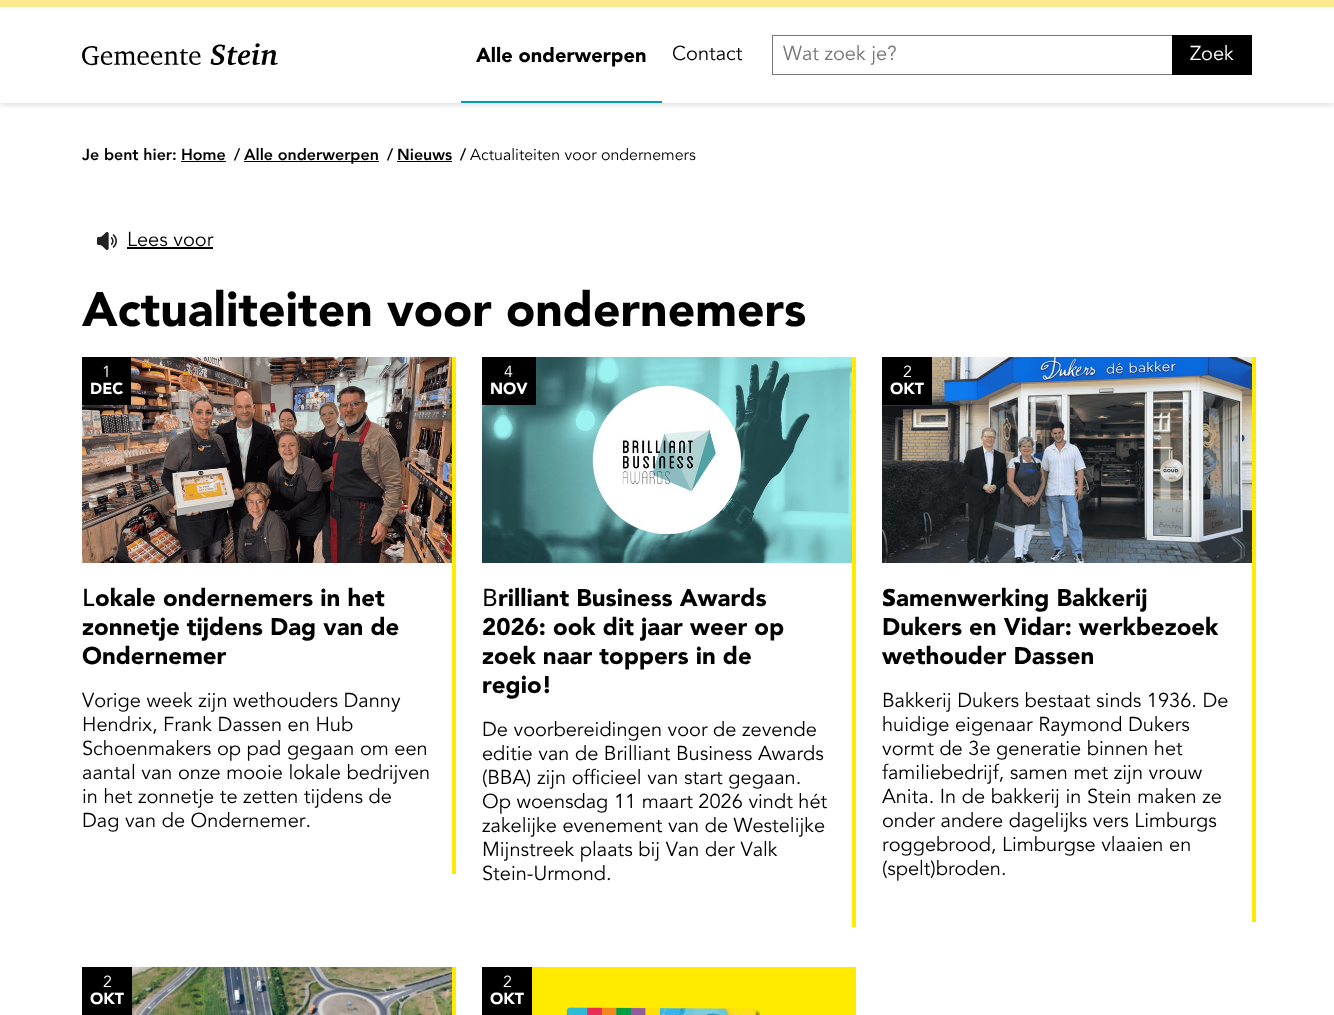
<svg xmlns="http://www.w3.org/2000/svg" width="1334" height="1015">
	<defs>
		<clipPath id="clip1"><rect x="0" y="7" width="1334" height="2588" /></clipPath>
		<clipPath id="clip2"><rect x="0" y="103" width="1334" height="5" /></clipPath>
	</defs>
	<rect width="100%" height="100%" fill="#FFFFFF" />
	<rect x="0" y="0" width="1334" height="7" fill="#FBEA8C" />
	<g clip-path="url(#clip1)">
		<g clip-path="url(#clip2)">
			<rect x="0" y="7" width="1334" height="96" fill="#000000" fill-opacity="0.2" filter="blur(4px)" />
		</g>
	</g>
	<image x="82" y="43" width="196" height="23" href="assets/img1.png" />
	<rect x="461" y="101" width="201" height="2" fill="#009AC8" />
	<text x="476" y="62" font-family="'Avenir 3'" font-size="20" fill="#000000">Alle onderwerpen</text>
	<text x="672" y="60" font-family="'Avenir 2'" font-size="20" fill="#000000">Contact</text>
	<rect x="772.5" y="35.5" width="479" height="39" fill="none" stroke="#767676" />
	<text x="783" y="60" font-family="'Avenir 2'" font-size="20" fill="#767676">Wat zoek je?</text>
	<rect x="1172" y="35" width="80" height="40" fill="#000000" />
	<text x="1190" y="60" font-family="'Avenir 2'" font-size="20" fill="#FFFFFF">Zoek</text>
	<g font-family="Avenir" font-size="16" fill="#000000">
		<text x="82" y="160">Je bent hier:</text>
		<text x="181" y="160">Home</text>
	</g>
	<rect x="181" y="161" width="45" height="1" fill="#000000" />
	<text x="234" y="160" font-family="Avenir" font-size="16" fill="#000000">/</text>
	<rect x="244" y="161" width="135" height="1" fill="#000000" />
	<g font-family="Avenir" font-size="16" fill="#000000">
		<text x="244" y="160">Alle onderwerpen</text>
		<text x="387" y="160">/</text>
		<text x="397" y="160">Nieuws</text>
	</g>
	<rect x="397" y="161" width="55" height="1" fill="#000000" />
	<text x="460" y="160" font-family="Avenir" font-size="16" fill="#000000">/</text>
	<text x="470" y="160" font-family="'Avenir 2'" font-size="16" fill="#000000">Actualiteiten voor ondernemers</text>
	<image x="97" y="232" width="20" height="18" href="assets/img2.png" />
	<text x="127" y="246" font-family="'Avenir 2'" font-size="20" fill="#000000">Lees voor</text>
	<rect x="127" y="247" width="86" height="2" fill="#000000" />
	<text x="82" y="326" font-family="'Avenir 3'" font-size="48" fill="#000000">Actualiteiten voor ondernemers</text>
	<rect x="452" y="357" width="4" height="517" fill="#FFEB00" />
	<image x="82" y="357" width="370" height="206" href="assets/img3.png" />
	<rect x="82" y="357" width="49" height="48" fill="#000000" />
	<text x="102" y="377" font-family="'Avenir 2'" font-size="16" fill="#FFFFFF">1</text>
	<text x="90" y="394" font-family="'Avenir 3'" font-size="16" fill="#FFFFFF">DEC</text>
	<text x="82" y="606" font-family="Noto Sans" font-size="24" font-weight="500" fill="#000000">L</text>
	<g font-family="'Avenir 3'" font-size="24" fill="#000000">
		<text x="95" y="606">okale ondernemers in het</text>
		<text x="82" y="635">zonnetje tijdens Dag van de</text>
		<text x="82" y="664">Ondernemer</text>
	</g>
	<g font-family="'Avenir 2'" font-size="20" fill="#000000">
		<text x="82" y="707">Vorige week zijn wethouders Danny</text>
		<text x="82" y="731">Hendrix, Frank Dassen en Hub</text>
		<text x="82" y="755">Schoenmakers op pad gegaan om een</text>
		<text x="82" y="779">aantal van onze mooie lokale bedrijven</text>
		<text x="82" y="803">in het zonnetje te zetten tijdens de</text>
		<text x="82" y="827">Dag van de Ondernemer.</text>
	</g>
	<rect x="852" y="357" width="4" height="570" fill="#FFEB00" />
	<image x="482" y="357" width="370" height="206" href="assets/img4.png" />
	<rect x="482" y="357" width="54" height="48" fill="#000000" />
	<text x="504" y="377" font-family="'Avenir 2'" font-size="16" fill="#FFFFFF">4</text>
	<text x="490" y="394" font-family="'Avenir 3'" font-size="16" fill="#FFFFFF">NOV</text>
	<text x="482" y="606" font-family="Noto Sans" font-size="24" fill="#000000">B</text>
	<g font-family="'Avenir 3'" font-size="24" fill="#000000">
		<text x="498" y="606">rilliant Business Awards</text>
		<text x="482" y="635">2026: ook dit jaar weer op</text>
		<text x="482" y="664">zoek naar toppers in de</text>
		<text x="482" y="693">regio!</text>
	</g>
	<g font-family="'Avenir 2'" font-size="20" fill="#000000">
		<text x="482" y="736">De voorbereidingen voor de zevende</text>
		<text x="482" y="760">editie van de Brilliant Business Awards</text>
		<text x="482" y="784">(BBA) zijn officieel van start gegaan.</text>
		<text x="482" y="808">Op woensdag 11 maart 2026 vindt hét</text>
		<text x="482" y="832">zakelijke evenement van de Westelijke</text>
		<text x="482" y="856">Mijnstreek plaats bij Van der Valk</text>
		<text x="482" y="880">Stein-Urmond.</text>
	</g>
	<rect x="1252" y="357" width="4" height="565" fill="#FFEB00" />
	<image x="882" y="357" width="370" height="206" href="assets/img5.png" />
	<rect x="882" y="357" width="50" height="48" fill="#000000" />
	<text x="903" y="377" font-family="'Avenir 2'" font-size="16" fill="#FFFFFF">2</text>
	<text x="890" y="394" font-family="'Avenir 3'" font-size="16" fill="#FFFFFF">OKT</text>
	<text x="882" y="606" font-family="Noto Sans" font-size="24" font-weight="900" fill="#000000">S</text>
	<g font-family="'Avenir 3'" font-size="24" fill="#000000">
		<text x="896" y="606">amenwerking Bakkerij</text>
		<text x="882" y="635">Dukers en Vidar: werkbezoek</text>
		<text x="882" y="664">wethouder Dassen</text>
	</g>
	<g font-family="'Avenir 2'" font-size="20" fill="#000000">
		<text x="882" y="707">Bakkerij Dukers bestaat sinds 1936. De</text>
		<text x="882" y="731">huidige eigenaar Raymond Dukers</text>
		<text x="882" y="755">vormt de 3e generatie binnen het</text>
		<text x="882" y="779">familiebedrijf, samen met zijn vrouw</text>
		<text x="882" y="803">Anita. In de bakkerij in Stein maken ze</text>
		<text x="882" y="827">onder andere dagelijks vers Limburgs</text>
		<text x="882" y="851">roggebrood, Limburgse vlaaien en</text>
		<text x="882" y="875">(spelt)broden.</text>
	</g>
	<rect x="452" y="967" width="4" height="48" fill="#FFEB00" />
	<rect x="82" y="967" width="50" height="48" fill="#000000" />
	<text x="103" y="987" font-family="'Avenir 2'" font-size="16" fill="#FFFFFF">2</text>
	<text x="90" y="1004" font-family="'Avenir 3'" font-size="16" fill="#FFFFFF">OKT</text>
	<image x="132" y="967" width="320" height="48" href="assets/img6.png" />
	<rect x="532" y="967" width="324" height="48" fill="#FFEB00" />
	<rect x="482" y="967" width="50" height="48" fill="#000000" />
	<text x="503" y="987" font-family="'Avenir 2'" font-size="16" fill="#FFFFFF">2</text>
	<text x="490" y="1004" font-family="'Avenir 3'" font-size="16" fill="#FFFFFF">OKT</text>
	<image x="566" y="1007" width="194" height="8" href="assets/img7.png" />
</svg>
